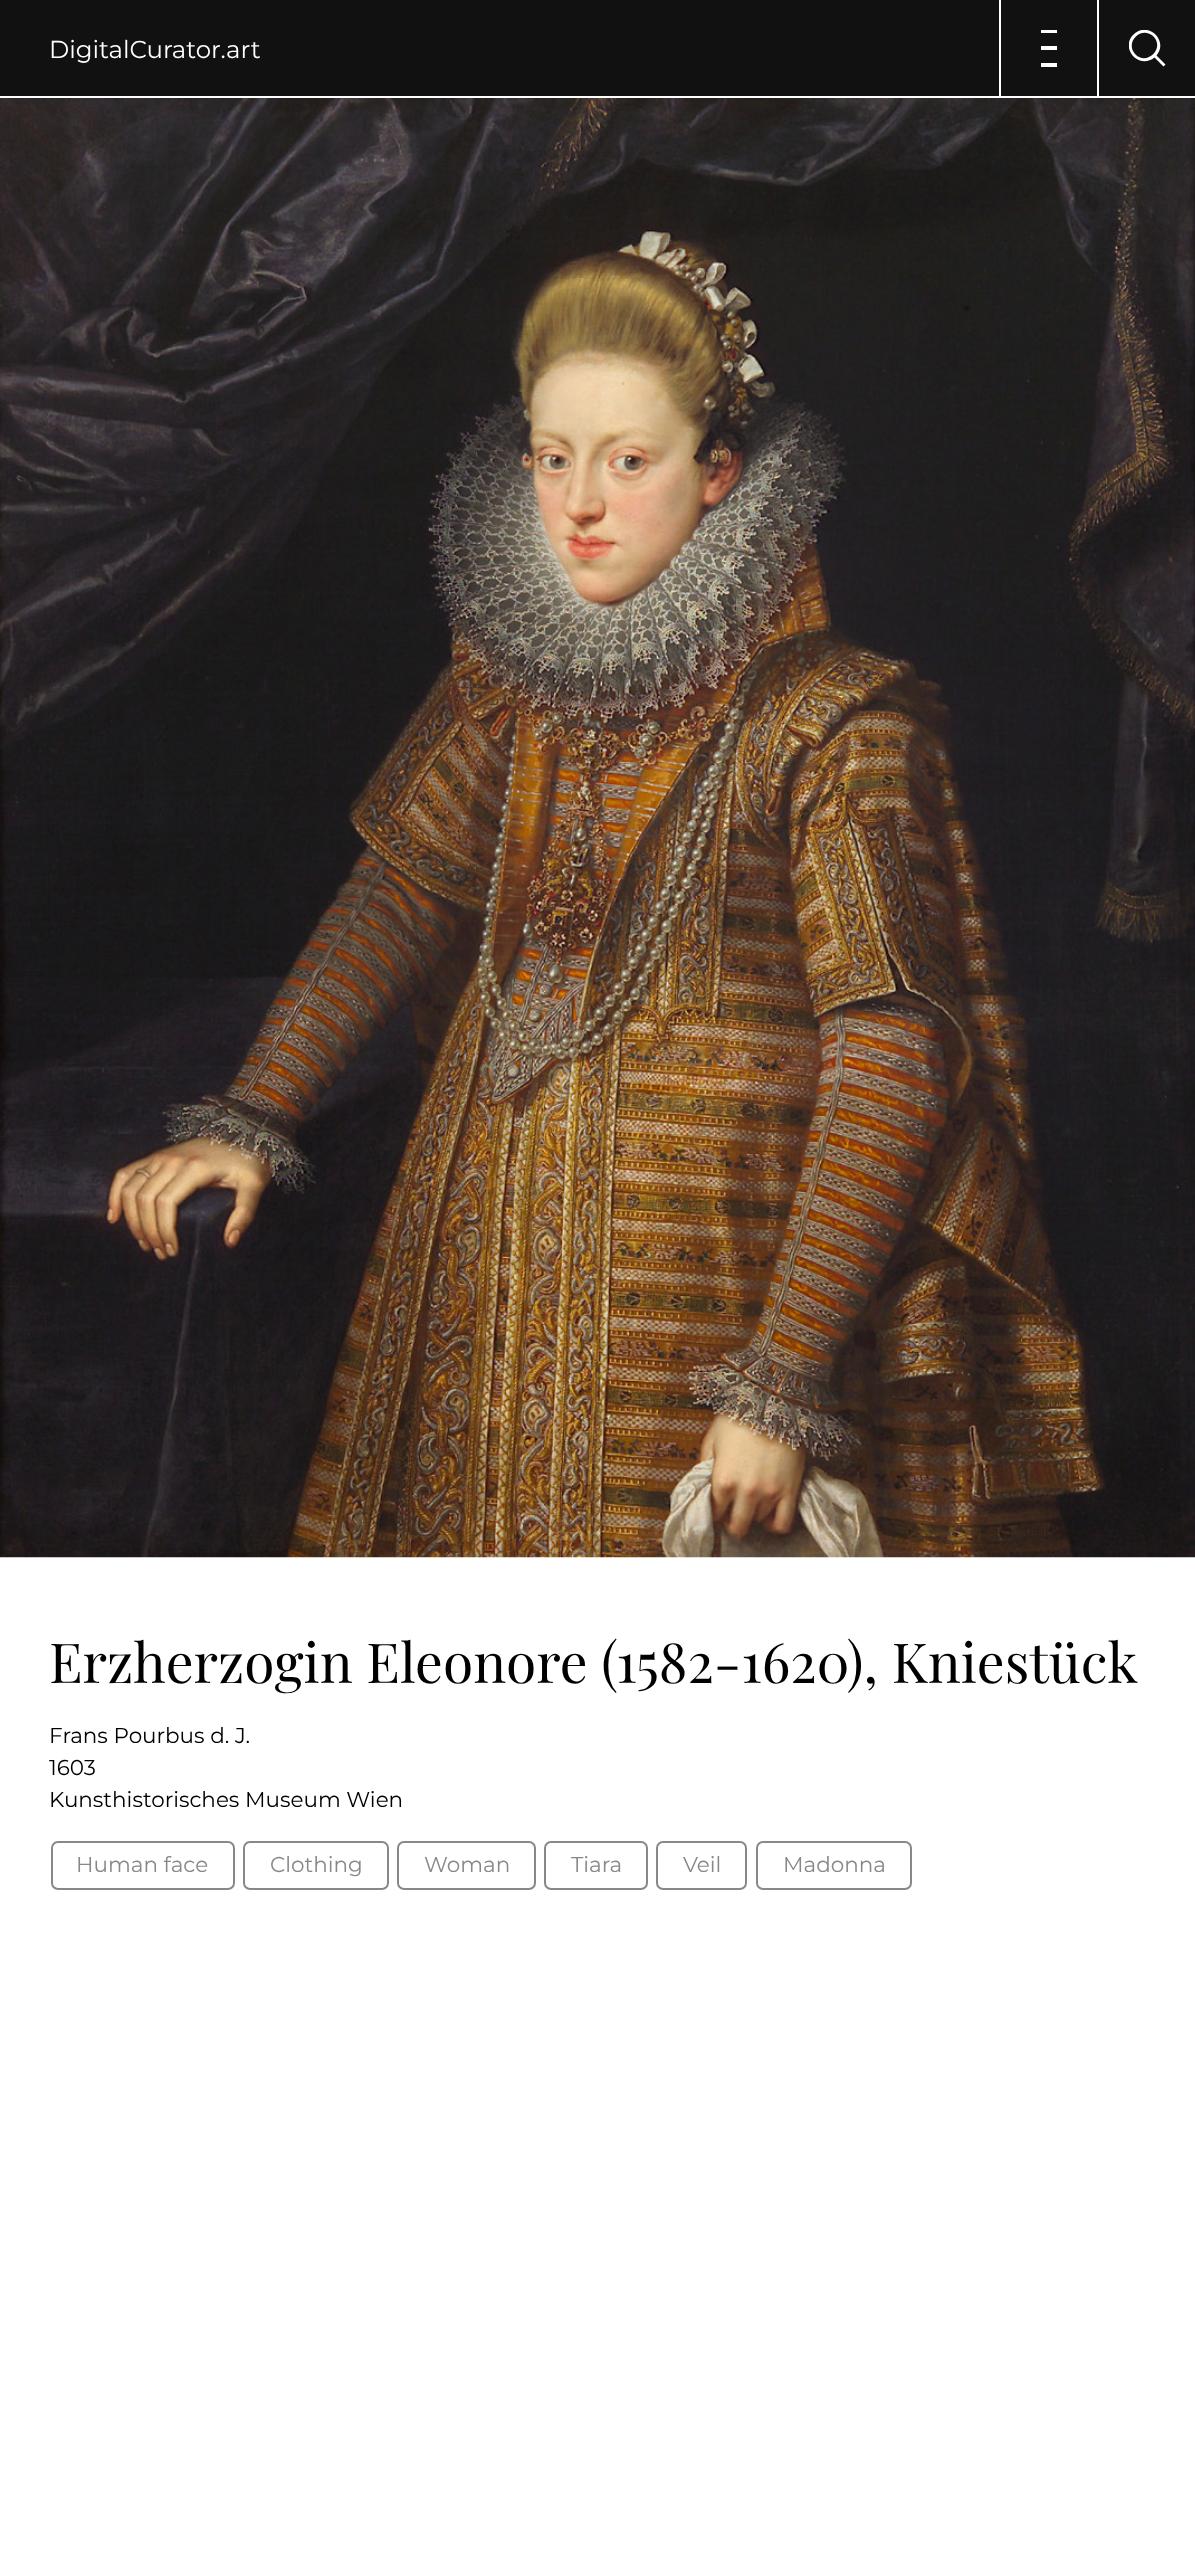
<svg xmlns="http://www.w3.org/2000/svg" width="1195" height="2566">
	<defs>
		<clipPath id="clip1"><rect x="1129" y="30" width="37" height="37" /></clipPath>
	</defs>
	<rect width="100%" height="100%" fill="#111111" />
	<rect x="0" y="96" width="1195" height="2" fill="#FFFFFF" />
	<text x="49" y="58" font-family="Montserrat" font-size="24.5" fill="#FFFFFF">DigitalCurator.art</text>
	<rect x="1041" y="63" width="16" height="4" fill="#FFFFFF" />
	<rect x="1041" y="46" width="16" height="4" fill="#FFFFFF" />
	<rect x="1041" y="30" width="16" height="3" fill="#FFFFFF" />
	<rect x="999" y="0" width="2" height="98" fill="#FFFFFF" />
	<g clip-path="url(#clip1)">
		<path d="M1133.5 34.5C1148 20.5 1169 40.5 1156.5 55.5L1165.5 64.5L1163.5 66.5L1154.5 57.5C1139 70 1119.5 48 1133.5 34.5ZM1153.5 36.5C1141.5 25 1124 42.5 1135.5 54.5C1147 66 1165 48.5 1153.5 36.5Z" fill="#FFFFFF" />
	</g>
	<rect x="1097" y="0" width="2" height="98" fill="#FFFFFF" />
	<rect x="0" y="1557" width="1195" height="1009" fill="#FFFFFF" />
	<image x="0" y="98" width="1195" height="1460" href="assets/img1.png" />
	<text x="49" y="1683" font-family="Playfair Display" font-size="55.1" fill="#000000">Erzherzogin Eleonore (1582-1620), Kniestück</text>
	<g font-family="Montserrat" font-size="21.5" fill="#000000">
		<text x="49" y="1743">Frans Pourbus d. J.</text>
		<text x="49" y="1775">1603</text>
		<text x="49" y="1807">Kunsthistorisches Museum Wien</text>
	</g>
	<rect x="52" y="1842" width="182" height="47" rx="6" fill="none" stroke="#888888" stroke-width="2" />
	<text x="76" y="1872" font-family="Montserrat" font-size="21.5" fill="#888888">Human face</text>
	<rect x="244" y="1842" width="144" height="47" rx="6" fill="none" stroke="#888888" stroke-width="2" />
	<text x="270" y="1872" font-family="Montserrat" font-size="21.5" fill="#888888">Clothing</text>
	<rect x="398" y="1842" width="137" height="47" rx="6" fill="none" stroke="#888888" stroke-width="2" />
	<text x="424" y="1872" font-family="Montserrat" font-size="21.5" fill="#888888">Woman</text>
	<rect x="545" y="1842" width="102" height="47" rx="6" fill="none" stroke="#888888" stroke-width="2" />
	<text x="571" y="1872" font-family="Montserrat" font-size="21.5" fill="#888888">Tiara</text>
	<rect x="657" y="1842" width="89" height="47" rx="6" fill="none" stroke="#888888" stroke-width="2" />
	<text x="683" y="1872" font-family="Montserrat" font-size="21.5" fill="#888888">Veil</text>
	<rect x="757" y="1842" width="154" height="47" rx="6" fill="none" stroke="#888888" stroke-width="2" />
	<text x="783" y="1872" font-family="Montserrat" font-size="21.5" fill="#888888">Madonna</text>
</svg>
